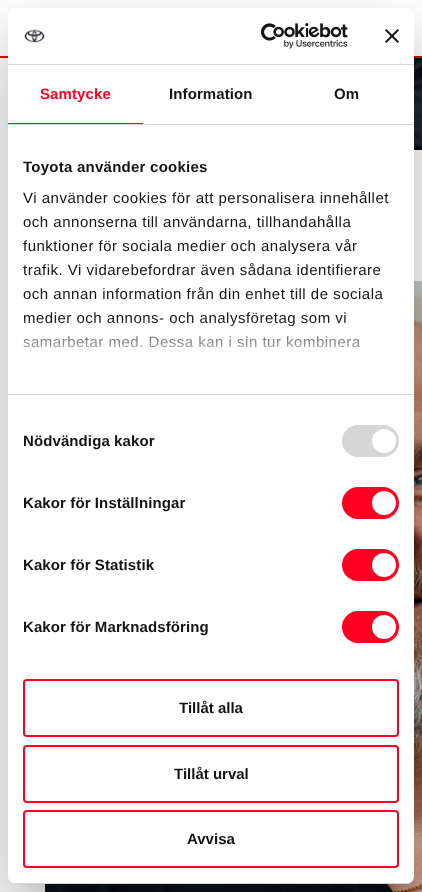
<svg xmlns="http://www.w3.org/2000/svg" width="422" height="892">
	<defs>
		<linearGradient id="g1" gradientUnits="userSpaceOnUse" x1="205" y1="394" x2="205" y2="319"><stop offset="0" stop-color="#FFFFFF" /><stop offset="0.5" stop-color="#FFFFFF" stop-opacity="0.8" /><stop offset="1" stop-color="#FFFFFF" stop-opacity="0" /></linearGradient>
		<clipPath id="clip1"><rect x="8" y="8" width="406" height="876" rx="8" /></clipPath>
	</defs>
	<rect width="100%" height="100%" fill="#FFFFFF" />
	<rect x="0" y="56" width="422" height="2" fill="#E50000" />
	<image x="414" y="58" width="8" height="92" href="assets/img1.png" />
	<image x="45" y="281" width="377" height="611" href="assets/img2.png" />
	<rect x="8" y="40" width="406" height="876" rx="8" fill="#000000" fill-opacity="0.3" filter="blur(34px)" />
	<rect x="8" y="8" width="406" height="876" rx="8" fill="#FFFFFF" />
	<rect x="8" y="64" width="406" height="1" fill="#D6D6D6" />
	<image x="24" y="29" width="21" height="14" href="assets/img3.png" />
	<image x="261" y="23" width="87" height="26" href="assets/img4.png" />
	<image x="385" y="29" width="14" height="14" href="assets/img5.png" />
	<rect x="8" y="124" width="406" height="1" fill="#D6D6D6" />
	<rect x="8" y="123" width="135" height="1" fill="#FF0022" />
	<text x="40" y="99" font-family="Liberation Sans" font-size="15" font-weight="700" letter-spacing="0.1" fill="#FF0022">Samtycke</text>
	<g font-family="Liberation Sans" font-size="15" font-weight="700" letter-spacing="0.1" fill="#141414">
		<text x="169" y="99">Information</text>
		<text x="334" y="99">Om</text>
	</g>
	<rect x="8" y="394" width="406" height="1" fill="#D6D6D6" />
	<text x="23" y="172" font-family="Liberation Sans" font-size="15" font-weight="700" letter-spacing="0.25" fill="#141414">Toyota använder cookies</text>
	<g font-family="Liberation Sans" font-size="15" letter-spacing="0.5" fill="#141414">
		<text x="23" y="203">Vi använder cookies för att personalisera innehållet</text>
		<text x="23" y="227">och annonserna till användarna, tillhandahålla</text>
		<text x="23" y="251">funktioner för sociala medier och analysera vår</text>
		<text x="23" y="275">trafik. Vi vidarebefordrar även sådana identifierare</text>
		<text x="23" y="299">och annan information från din enhet till de sociala</text>
		<text x="23" y="323">medier och annons- och analysföretag som vi</text>
		<text x="23" y="347">samarbetar med. Dessa kan i sin tur kombinera</text>
	</g>
	<rect x="23" y="320" width="338" height="28" fill="url(#g1)" />
	<text x="23" y="446" font-family="Liberation Sans" font-size="15" font-weight="700" letter-spacing="0.1" fill="#141414">Nödvändiga kakor</text>
	<rect x="342" y="425" width="57" height="32" rx="16" fill="#D6D6D6" />
	<circle cx="384" cy="441" r="12" fill="#FFFFFF" />
	<text x="23" y="508" font-family="Liberation Sans" font-size="15" font-weight="700" letter-spacing="0.1" fill="#141414">Kakor för Inställningar</text>
	<rect x="342" y="487" width="57" height="32" rx="16" fill="#FF0022" />
	<circle cx="384" cy="503" r="12" fill="#FFFFFF" />
	<text x="23" y="570" font-family="Liberation Sans" font-size="15" font-weight="700" letter-spacing="0.1" fill="#141414">Kakor för Statistik</text>
	<rect x="342" y="549" width="57" height="32" rx="16" fill="#FF0022" />
	<circle cx="384" cy="565" r="12" fill="#FFFFFF" />
	<text x="23" y="632" font-family="Liberation Sans" font-size="15" font-weight="700" letter-spacing="0.1" fill="#141414">Kakor för Marknadsföring</text>
	<rect x="342" y="611" width="57" height="32" rx="16" fill="#FF0022" />
	<circle cx="384" cy="627" r="12" fill="#FFFFFF" />
	<g clip-path="url(#clip1)">
		<rect x="8" y="883" width="406" height="1" fill="#D6D6D6" />
	</g>
	<rect x="24" y="680" width="374" height="56" rx="3" fill="none" stroke="#FF0022" stroke-width="2" />
	<text x="179" y="713" font-family="Liberation Sans" font-size="15" font-weight="700" fill="#141414">Tillåt alla</text>
	<rect x="24" y="746" width="374" height="56" rx="3" fill="none" stroke="#FF0022" stroke-width="2" />
	<text x="174" y="779" font-family="Liberation Sans" font-size="15" font-weight="700" fill="#141414">Tillåt urval</text>
	<rect x="24" y="811" width="374" height="56" rx="3" fill="none" stroke="#FF0022" stroke-width="2" />
	<text x="187" y="844" font-family="Liberation Sans" font-size="15" font-weight="700" fill="#141414">Avvisa</text>
</svg>
